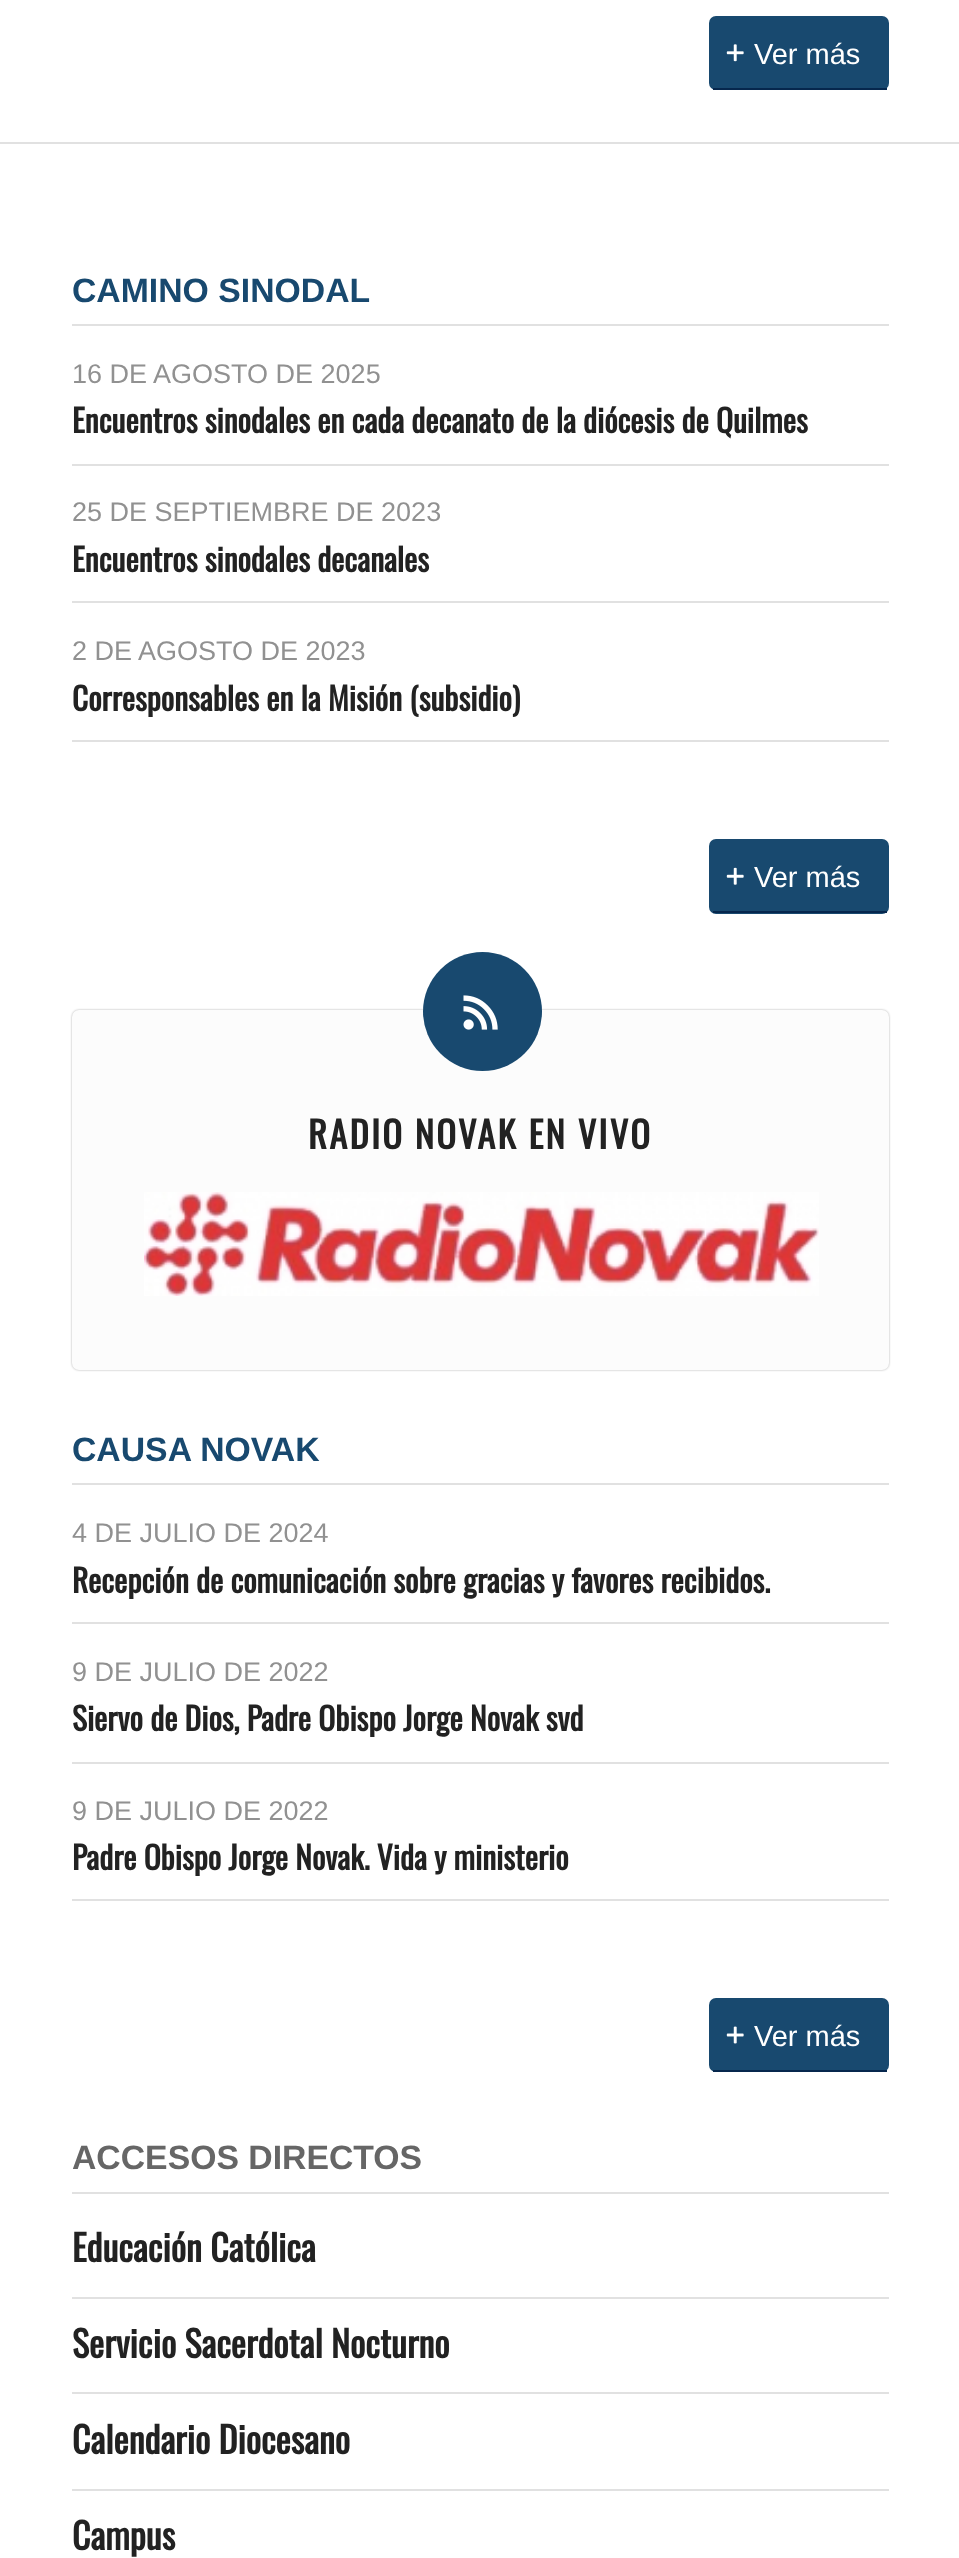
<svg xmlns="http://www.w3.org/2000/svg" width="959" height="2558">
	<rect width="100%" height="100%" fill="#FFFFFF" />
	<rect x="709" y="16" width="180" height="74" rx="7" fill="#18496F" />
	<rect x="713" y="88" width="174" height="2" fill="#06274D" />
	<image x="726" y="44" width="18" height="18" href="assets/img1.png" />
	<text x="754" y="64" font-family="Liberation Sans" font-size="29" fill="#FFFFFF">Ver más</text>
	<rect x="0" y="142" width="959" height="2" fill="#E1E1E1" />
	<rect x="72" y="324" width="817" height="2" fill="#E1E1E1" />
	<text x="72" y="302" font-family="Liberation Sans" font-size="33.75" font-weight="700" fill="#18496F">CAMINO SINODAL</text>
	<rect x="72" y="464" width="817" height="2" fill="#E1E1E1" />
	<text x="72" y="383" font-family="Liberation Sans" font-size="27" fill="#919191">16 DE AGOSTO DE 2025</text>
	<text x="72" y="433" font-family="Oswald" font-size="31.5" font-weight="700" fill="#222222">Encuentros sinodales en cada decanato de la diócesis de Quilmes</text>
	<rect x="72" y="601" width="817" height="2" fill="#E1E1E1" />
	<text x="72" y="521" font-family="Liberation Sans" font-size="27" fill="#919191">25 DE SEPTIEMBRE DE 2023</text>
	<text x="72" y="572" font-family="Oswald" font-size="31.5" font-weight="700" fill="#222222">Encuentros sinodales decanales</text>
	<rect x="72" y="740" width="817" height="2" fill="#E1E1E1" />
	<text x="72" y="660" font-family="Liberation Sans" font-size="27" fill="#919191">2 DE AGOSTO DE 2023</text>
	<text x="72" y="711" font-family="Oswald" font-size="31.5" font-weight="700" fill="#222222">Corresponsables en la Misión (subsidio)</text>
	<rect x="709" y="839" width="180" height="75" rx="7" fill="#18496F" />
	<rect x="713" y="911" width="174" height="2" fill="#06274D" />
	<image x="726" y="867" width="18" height="18" href="assets/img2.png" />
	<text x="754" y="887" font-family="Liberation Sans" font-size="29" fill="#FFFFFF">Ver más</text>
	<rect x="72" y="1010" width="817" height="360" rx="7" fill="#000000" fill-opacity="0.3" filter="blur(1px)" />
	<rect x="72" y="1010" width="817" height="360" rx="7" fill="#FCFCFC" />
	<circle cx="482.5" cy="1011.5" r="59.5" fill="#18496F" />
	<image x="463" y="995" width="35" height="35" href="assets/img3.png" />
	<text x="308" y="1149" font-family="Oswald" font-size="36.5" font-weight="700" letter-spacing="2.25" fill="#222222">RADIO NOVAK EN VIVO</text>
	<image x="144" y="1192" width="675" height="104" href="assets/img4.png" />
	<rect x="72" y="1483" width="817" height="2" fill="#E1E1E1" />
	<text x="72" y="1461" font-family="Liberation Sans" font-size="33.75" font-weight="700" fill="#18496F">CAUSA NOVAK</text>
	<rect x="72" y="1622" width="817" height="2" fill="#E1E1E1" />
	<text x="72" y="1542" font-family="Liberation Sans" font-size="27" fill="#919191">4 DE JULIO DE 2024</text>
	<text x="72" y="1593" font-family="Oswald" font-size="31.5" font-weight="700" fill="#222222">Recepción de comunicación sobre gracias y favores recibidos.</text>
	<rect x="72" y="1762" width="817" height="2" fill="#E1E1E1" />
	<text x="72" y="1681" font-family="Liberation Sans" font-size="27" fill="#919191">9 DE JULIO DE 2022</text>
	<text x="72" y="1731" font-family="Oswald" font-size="31.5" font-weight="700" fill="#222222">Siervo de Dios, Padre Obispo Jorge Novak svd</text>
	<rect x="72" y="1899" width="817" height="2" fill="#E1E1E1" />
	<text x="72" y="1820" font-family="Liberation Sans" font-size="27" fill="#919191">9 DE JULIO DE 2022</text>
	<text x="72" y="1870" font-family="Oswald" font-size="31.5" font-weight="700" fill="#222222">Padre Obispo Jorge Novak. Vida y ministerio</text>
	<rect x="709" y="1998" width="180" height="74" rx="7" fill="#18496F" />
	<rect x="713" y="2070" width="174" height="2" fill="#06274D" />
	<image x="726" y="2026" width="18" height="18" href="assets/img5.png" />
	<text x="754" y="2046" font-family="Liberation Sans" font-size="29" fill="#FFFFFF">Ver más</text>
	<text x="72" y="2169" font-family="Liberation Sans" font-size="33.75" font-weight="700" fill="#666666">ACCESOS DIRECTOS</text>
	<rect x="72" y="2192" width="817" height="2" fill="#E1E1E1" />
	<text x="72" y="2262" font-family="Oswald" font-size="36" font-weight="700" fill="#222222">Educación Católica</text>
	<rect x="72" y="2297" width="817" height="2" fill="#E1E1E1" />
	<text x="72" y="2358" font-family="Oswald" font-size="36" font-weight="700" fill="#222222">Servicio Sacerdotal Nocturno</text>
	<rect x="72" y="2392" width="817" height="2" fill="#E1E1E1" />
	<text x="72" y="2454" font-family="Oswald" font-size="36" font-weight="700" fill="#222222">Calendario Diocesano</text>
	<rect x="72" y="2489" width="817" height="2" fill="#E1E1E1" />
	<text x="72" y="2550" font-family="Oswald" font-size="36" font-weight="700" fill="#222222">Campus</text>
</svg>
